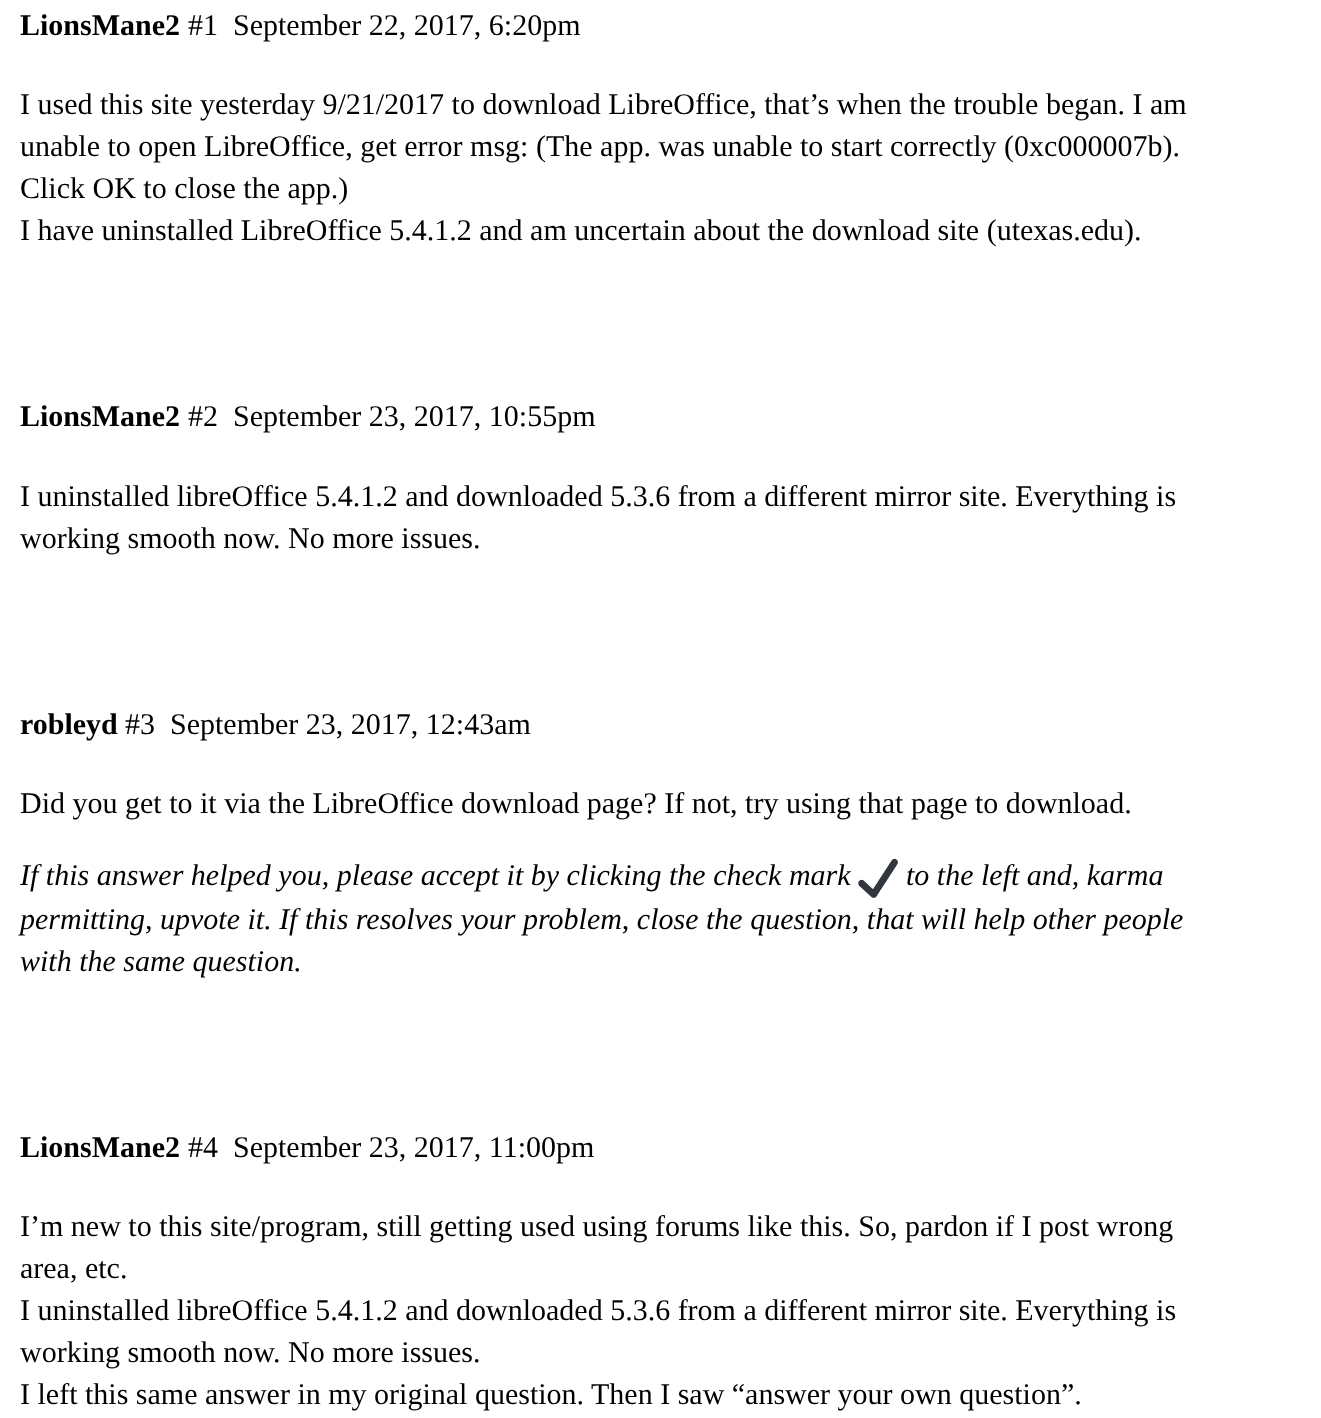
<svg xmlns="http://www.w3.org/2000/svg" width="1321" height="1418">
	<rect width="100%" height="100%" fill="#FFFFFF" />
	<text x="20" y="35" font-family="Liberation Serif" font-size="30" font-weight="700" fill="#000000">LionsMane2</text>
	<g font-family="Liberation Serif" font-size="30" fill="#000000">
		<text x="188" y="35">#1</text>
		<text x="233" y="35">September 22, 2017, 6:20pm</text>
		<text x="20" y="114">I used this site yesterday 9/21/2017 to download LibreOffice, that’s when the trouble began. I am</text>
		<text x="20" y="156">unable to open LibreOffice, get error msg: (The app. was unable to start correctly (0xc000007b).</text>
		<text x="20" y="198">Click OK to close the app.)</text>
		<text x="20" y="240">I have uninstalled LibreOffice 5.4.1.2 and am uncertain about the download site (utexas.edu).</text>
	</g>
	<text x="20" y="426" font-family="Liberation Serif" font-size="30" font-weight="700" fill="#000000">LionsMane2</text>
	<g font-family="Liberation Serif" font-size="30" fill="#000000">
		<text x="188" y="426">#2</text>
		<text x="233" y="426">September 23, 2017, 10:55pm</text>
		<text x="20" y="506">I uninstalled libreOffice 5.4.1.2 and downloaded 5.3.6 from a different mirror site. Everything is</text>
		<text x="20" y="548">working smooth now. No more issues.</text>
	</g>
	<text x="20" y="734" font-family="Liberation Serif" font-size="30" font-weight="700" fill="#000000">robleyd</text>
	<g font-family="Liberation Serif" font-size="30" fill="#000000">
		<text x="125" y="734">#3</text>
		<text x="170" y="734">September 23, 2017, 12:43am</text>
		<text x="20" y="813">Did you get to it via the LibreOffice download page? If not, try using that page to download.</text>
	</g>
	<text x="20" y="885" font-family="Liberation Serif" font-size="30" font-style="italic" fill="#000000">If this answer helped you, please accept it by clicking the check mark</text>
	<image x="858" y="858" width="40" height="40" href="assets/img1.png" />
	<g font-family="Liberation Serif" font-size="30" font-style="italic" fill="#000000">
		<text x="906" y="885">to the left and, karma</text>
		<text x="20" y="929">permitting, upvote it. If this resolves your problem, close the question, that will help other people</text>
		<text x="20" y="971">with the same question.</text>
	</g>
	<text x="20" y="1157" font-family="Liberation Serif" font-size="30" font-weight="700" fill="#000000">LionsMane2</text>
	<g font-family="Liberation Serif" font-size="30" fill="#000000">
		<text x="188" y="1157">#4</text>
		<text x="233" y="1157">September 23, 2017, 11:00pm</text>
		<text x="20" y="1236">I’m new to this site/program, still getting used using forums like this. So, pardon if I post wrong</text>
		<text x="20" y="1278">area, etc.</text>
		<text x="20" y="1320">I uninstalled libreOffice 5.4.1.2 and downloaded 5.3.6 from a different mirror site. Everything is</text>
		<text x="20" y="1362">working smooth now. No more issues.</text>
		<text x="20" y="1404">I left this same answer in my original question. Then I saw “answer your own question”.</text>
	</g>
</svg>
